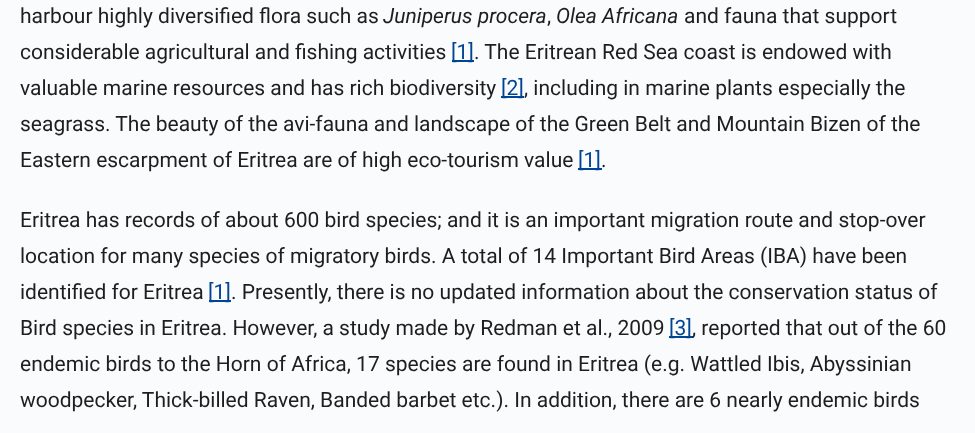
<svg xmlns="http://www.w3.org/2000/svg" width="975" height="433">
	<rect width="100%" height="100%" fill="#FAFBFC" />
	<text x="20" y="23" font-family="Roboto" font-size="21" fill="#1E1E1E">harbour highly diversified flora such as</text>
	<text x="383" y="23" font-family="Roboto" font-size="21" font-style="italic" fill="#1E1E1E">Juniperus procera</text>
	<text x="547" y="23" font-family="Roboto" font-size="21" fill="#1E1E1E">,</text>
	<text x="556" y="23" font-family="Roboto" font-size="21" font-style="italic" fill="#1E1E1E">Olea Africana</text>
	<g font-family="Roboto" font-size="21" fill="#1E1E1E">
		<text x="684" y="23">and fauna that support</text>
		<text x="20" y="59">considerable agricultural and fishing activities</text>
	</g>
	<rect x="452" y="60" width="22" height="2" fill="#004494" />
	<text x="451" y="59" font-family="Roboto" font-size="21" fill="#004494">[1]</text>
	<g font-family="Roboto" font-size="21" fill="#1E1E1E">
		<text x="474" y="59">. The Eritrean Red Sea coast is endowed with</text>
		<text x="20" y="95">valuable marine resources and has rich biodiversity</text>
	</g>
	<rect x="501" y="96" width="23" height="2" fill="#004494" />
	<text x="501" y="95" font-family="Roboto" font-size="21" fill="#004494">[2]</text>
	<g font-family="Roboto" font-size="21" fill="#1E1E1E">
		<text x="524" y="95">, including in marine plants especially the</text>
		<text x="20" y="131">seagrass. The beauty of the avi-fauna and landscape of the Green Belt and Mountain Bizen of the</text>
		<text x="20" y="167">Eastern escarpment of Eritrea are of high eco-tourism value</text>
	</g>
	<rect x="578" y="168" width="24" height="2" fill="#004494" />
	<text x="578" y="167" font-family="Roboto" font-size="21" fill="#004494">[1]</text>
	<g font-family="Roboto" font-size="21" fill="#1E1E1E">
		<text x="601" y="167">.</text>
		<text x="20" y="227">Eritrea has records of about 600 bird species; and it is an important migration route and stop-over</text>
		<text x="20" y="263">location for many species of migratory birds. A total of 14 Important Bird Areas (IBA) have been</text>
		<text x="20" y="299">identified for Eritrea</text>
	</g>
	<rect x="209" y="300" width="22" height="2" fill="#004494" />
	<text x="208" y="299" font-family="Roboto" font-size="21" fill="#004494">[1]</text>
	<g font-family="Roboto" font-size="21" fill="#1E1E1E">
		<text x="231" y="299">. Presently, there is no updated information about the conservation status of</text>
		<text x="20" y="335">Bird species in Eritrea. However, a study made by Redman et al., 2009</text>
	</g>
	<rect x="669" y="336" width="24" height="2" fill="#004494" />
	<text x="669" y="335" font-family="Roboto" font-size="21" fill="#004494">[3]</text>
	<g font-family="Roboto" font-size="21" fill="#1E1E1E">
		<text x="692" y="335">, reported that out of the 60</text>
		<text x="20" y="371">endemic birds to the Horn of Africa, 17 species are found in Eritrea (e.g. Wattled Ibis, Abyssinian</text>
		<text x="20" y="407">woodpecker, Thick-billed Raven, Banded barbet etc.). In addition, there are 6 nearly endemic birds</text>
	</g>
</svg>
